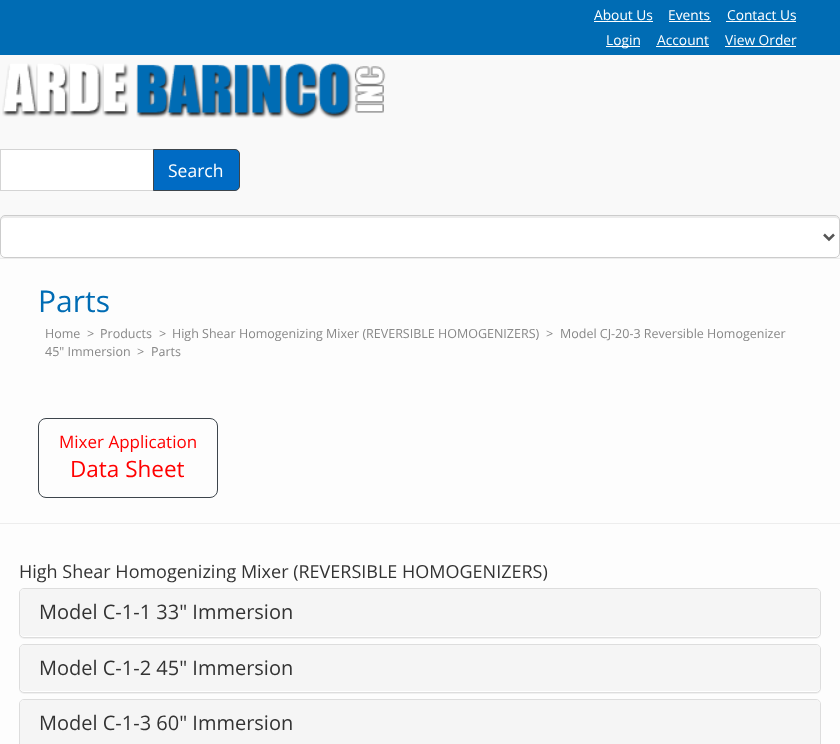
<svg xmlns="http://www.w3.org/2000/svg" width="840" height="744">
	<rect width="100%" height="100%" fill="#FDFDFD" />
	<rect x="0" y="0" width="840" height="55" fill="#006CB4" />
	<text x="594" y="20" font-family="Open Sans" font-size="13.75" fill="#FFFFFF">About Us</text>
	<rect x="594" y="21" width="59" height="1" fill="#FFFFFF" />
	<text x="668" y="20" font-family="Open Sans" font-size="13.75" fill="#FFFFFF">Events</text>
	<rect x="669" y="21" width="42" height="1" fill="#FFFFFF" />
	<text x="727" y="20" font-family="Open Sans" font-size="13.75" fill="#FFFFFF">Contact Us</text>
	<rect x="726" y="21" width="70" height="1" fill="#FFFFFF" />
	<rect x="606" y="46" width="34" height="1" fill="#FFFFFF" />
	<g font-family="Open Sans" font-size="13.75" fill="#FFFFFF">
		<text x="606" y="45">Login</text>
		<text x="657" y="45">Account</text>
	</g>
	<rect x="656" y="46" width="53" height="1" fill="#FFFFFF" />
	<text x="725" y="45" font-family="Open Sans" font-size="13.75" fill="#FFFFFF">View Order</text>
	<rect x="725" y="46" width="71" height="1" fill="#FFFFFF" />
	<rect x="0" y="55" width="840" height="203" fill="#F9F9F9" />
	<image x="2" y="63" width="384" height="56" href="assets/img1.png" />
	<rect x="0.5" y="149.5" width="153" height="41" fill="#FFFFFF" stroke="#D4D4D4" />
	<path d="M153.5 149.5H235C237.5 149.5 239.5 151.5 239.5 154V186C239.5 188.5 237.5 190.5 235 190.5H153.5Z" fill="#006BC4" stroke="#3D454C" />
	<text x="168" y="177" font-family="Open Sans" font-size="17.5" fill="#FFFFFF">Search</text>
	<rect x="0" y="215" width="840" height="43" rx="5" fill="#FFFFFF" />
	<path d="M5 218H835C837 218 839 219 839 221C839 218 838 216 835 216H5C2 216 1 218 1 221C1 219 3 218 5 218Z" fill="#ECECEC" />
	<rect x="0.5" y="215.5" width="839" height="42" rx="4.5" fill="none" stroke="#CCCCCC" />
	<path d="M824 234.5L829 239.5L834 234.5" fill="none" stroke="#555555" stroke-width="2.5" />
	<rect x="0" y="258" width="840" height="1" fill="#EDEDED" />
	<rect x="0" y="523" width="840" height="1" fill="#EDEDED" />
	<text x="38" y="312" font-family="Open Sans" font-size="30" fill="#006CB4">Parts</text>
	<g font-family="Open Sans" font-size="12.5" fill="#888888">
		<text x="45" y="338">Home</text>
		<text x="87" y="338">&gt;</text>
		<text x="100" y="338">Products</text>
		<text x="159" y="338">&gt;</text>
		<text x="172" y="338">High Shear Homogenizing Mixer (REVERSIBLE HOMOGENIZERS)</text>
		<text x="546" y="338">&gt;</text>
		<text x="560" y="338">Model CJ-20-3 Reversible Homogenizer</text>
		<text x="45" y="356">45" Immersion</text>
		<text x="137" y="356">&gt;</text>
		<text x="151" y="356">Parts</text>
	</g>
	<rect x="38.5" y="418.5" width="179" height="79" rx="7.5" fill="none" stroke="#3D454C" />
	<text x="59" y="448" font-family="Open Sans" font-size="17" fill="#FF0000">Mixer Application</text>
	<text x="70" y="477" font-family="Open Sans" font-size="22.5" fill="#FF0000">Data Sheet</text>
	<text x="19" y="578" font-family="Open Sans" font-size="18" fill="#333333">High Shear Homogenizing Mixer (REVERSIBLE HOMOGENIZERS)</text>
	<rect x="19" y="589" width="802" height="50" rx="5" fill="#000000" fill-opacity="0.05" filter="blur(0.5px)" />
	<rect x="19.5" y="588.5" width="801" height="49" rx="4.5" fill="#FFFFFF" stroke="#DDDDDD" />
	<rect x="20" y="589" width="800" height="47" rx="4" fill="#F5F5F5" />
	<text x="39" y="619" font-family="Open Sans" font-size="20" fill="#333333">Model C-1-1 33" Immersion</text>
	<rect x="19" y="645" width="802" height="49" rx="5" fill="#000000" fill-opacity="0.05" filter="blur(0.5px)" />
	<rect x="19.5" y="644.5" width="801" height="48" rx="4.5" fill="#FFFFFF" stroke="#DDDDDD" />
	<rect x="20" y="645" width="800" height="46" rx="4" fill="#F5F5F5" />
	<text x="39" y="675" font-family="Open Sans" font-size="20" fill="#333333">Model C-1-2 45" Immersion</text>
	<rect x="19.5" y="699.5" width="801" height="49" rx="4.5" fill="none" stroke="#DDDDDD" />
	<rect x="20" y="700" width="800" height="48" rx="4" fill="#F5F5F5" />
	<text x="39" y="730" font-family="Open Sans" font-size="20" fill="#333333">Model C-1-3 60" Immersion</text>
</svg>
